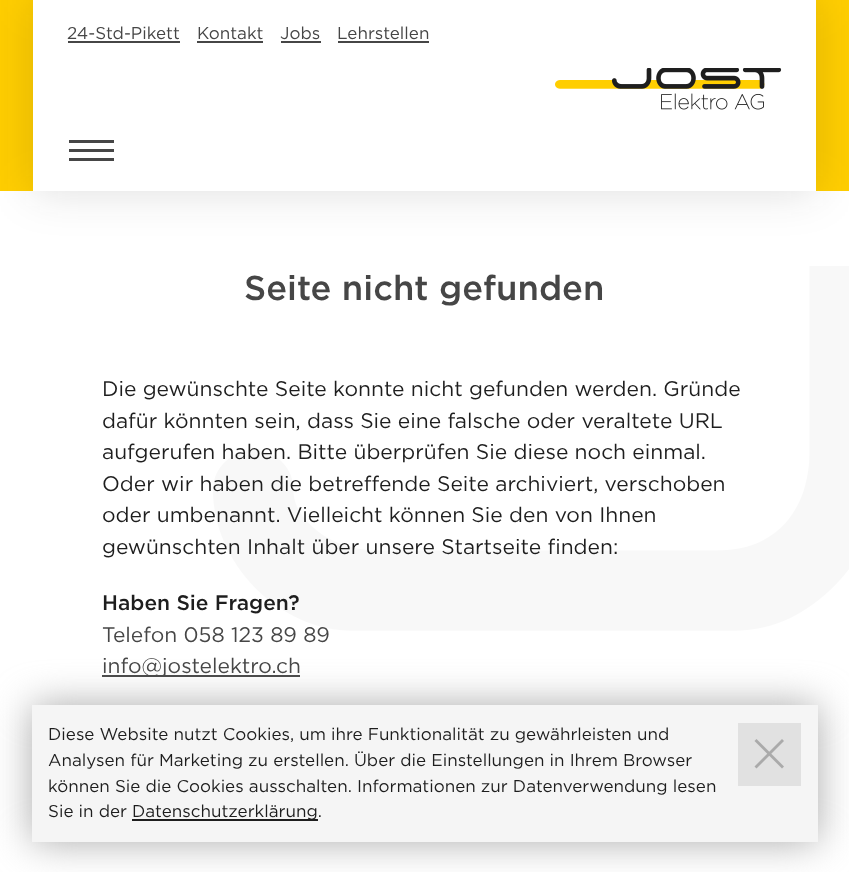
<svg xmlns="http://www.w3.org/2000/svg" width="849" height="872">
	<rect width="100%" height="100%" fill="#FFFFFF" />
	<rect x="0" y="0" width="849" height="191" fill="#FFCE00" />
	<rect x="33" y="0" width="783" height="191" fill="#1E1E1E" fill-opacity="0.15" filter="blur(22.5px)" />
	<rect x="33" y="0" width="783" height="191" fill="#FFFFFF" />
	<text x="67" y="39" font-family="Gotham" font-size="17.05" fill="#464646">24-Std-Pikett</text>
	<rect x="68" y="41" width="112" height="2" fill="#464646" />
	<text x="197" y="39" font-family="Gotham" font-size="17.05" fill="#464646">Kontakt</text>
	<rect x="197" y="41" width="66" height="2" fill="#464646" />
	<text x="280" y="39" font-family="Gotham" font-size="17.05" fill="#464646">Jobs</text>
	<rect x="281" y="41" width="40" height="2" fill="#464646" />
	<text x="337" y="39" font-family="Gotham" font-size="17.05" fill="#464646">Lehrstellen</text>
	<rect x="338" y="41" width="91" height="2" fill="#464646" />
	<image x="555" y="68" width="227" height="42" href="assets/img1.png" />
	<rect x="69" y="149" width="45" height="3" fill="#464646" />
	<rect x="69" y="140" width="45" height="3" fill="#464646" />
	<rect x="69" y="158" width="45" height="3" fill="#464646" />
	<image x="213" y="266" width="636" height="365" href="assets/img2.png" />
	<text x="244" y="300" font-family="Gotham" font-size="34.6" font-weight="500" fill="#464646">Seite nicht gefunden</text>
	<g font-family="Gotham" font-size="21" fill="#1E1E1E">
		<text x="102" y="396">Die gewünschte Seite konnte nicht gefunden werden. Gründe</text>
		<text x="102" y="428">dafür könnten sein, dass Sie eine falsche oder veraltete URL</text>
		<text x="102" y="459">aufgerufen haben. Bitte überprüfen Sie diese noch einmal.</text>
		<text x="102" y="491">Oder wir haben die betreffende Seite archiviert, verschoben</text>
		<text x="102" y="522">oder umbenannt. Vielleicht können Sie den von Ihnen</text>
		<text x="102" y="554">gewünschten Inhalt über unsere Startseite finden:</text>
	</g>
	<text x="102" y="610" font-family="Gotham" font-size="21" font-weight="500" fill="#1E1E1E">Haben Sie Fragen?</text>
	<text x="102" y="642" font-family="Gotham" font-size="21" fill="#464646">Telefon 058 123 89 89</text>
	<rect x="102" y="675" width="198" height="2" fill="#464646" />
	<text x="102" y="673" font-family="Gotham" font-size="21" fill="#464646">info@jostelektro.ch</text>
	<rect x="32" y="705" width="786" height="137" fill="#AAAAAA" filter="blur(19px)" />
	<rect x="32" y="705" width="786" height="137" fill="#F5F5F5" />
	<g font-family="Gotham" font-size="17.05" fill="#1E1E1E">
		<text x="48" y="740">Diese Website nutzt Cookies, um ihre Funktionalität zu gewährleisten und</text>
		<text x="48" y="766">Analysen für Marketing zu erstellen. Über die Einstellungen in Ihrem Browser</text>
		<text x="48" y="792">können Sie die Cookies ausschalten. Informationen zur Datenverwendung lesen</text>
		<text x="48" y="817">Sie in der</text>
	</g>
	<rect x="132" y="819" width="186" height="2" fill="#1E1E1E" />
	<text x="132" y="817" font-family="Gotham" font-size="17.05" fill="#1E1E1E">Datenschutzerklärung.</text>
	<rect x="738" y="723" width="63" height="63" fill="#E1E1E1" />
	<path d="M756.5 739L784 766.5L782 768.5L754.5 741Z" fill="#AAAAAA" />
	<path d="M754.5 766.5L782 739L784 741L756.5 768.5Z" fill="#AAAAAA" />
</svg>
